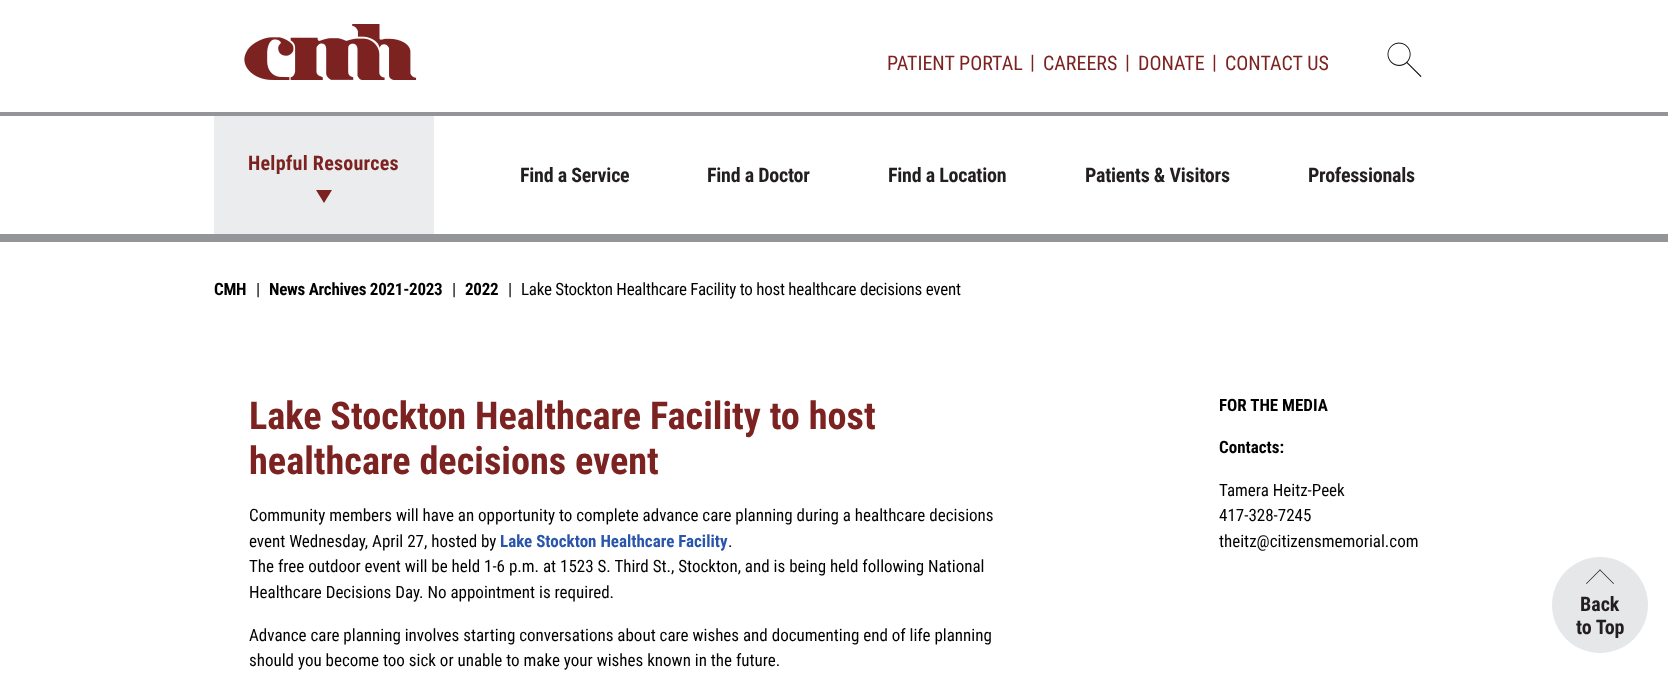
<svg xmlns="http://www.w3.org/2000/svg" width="1668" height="673">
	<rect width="100%" height="100%" fill="#FFFFFF" />
	<rect x="0" y="234" width="1668" height="8" fill="#939598" />
	<rect x="0" y="112" width="1668" height="4" fill="#939598" />
	<image x="244" y="24" width="173" height="56" href="assets/img1.png" />
	<image x="1387" y="42" width="35" height="35" href="assets/img2.png" />
	<g font-family="Roboto Condensed" font-size="20" fill="#7C2322">
		<text x="887" y="70">PATIENT PORTAL</text>
		<text x="1030" y="69">|</text>
		<text x="1043" y="70">CAREERS</text>
		<text x="1125" y="69">|</text>
		<text x="1138" y="70">DONATE</text>
		<text x="1212" y="69">|</text>
		<text x="1225" y="70">CONTACT US</text>
	</g>
	<rect x="214" y="116" width="220" height="118" fill="#EAECED" />
	<text x="248" y="170" font-family="Roboto Condensed" font-size="20" font-weight="700" letter-spacing="0.25" fill="#7C2322">Helpful Resources</text>
	<path d="M316 190H332L324 203Z" fill="#7C2322" />
	<g font-family="Roboto Condensed" font-size="20" font-weight="700" letter-spacing="-0.25" fill="#231F20">
		<text x="520" y="182">Find a Service</text>
		<text x="707" y="182">Find a Doctor</text>
		<text x="888" y="182">Find a Location</text>
		<text x="1085" y="182">Patients &amp; Visitors</text>
		<text x="1308" y="182">Professionals</text>
	</g>
	<text x="214" y="295" font-family="Roboto Condensed" font-size="17" font-weight="700" letter-spacing="-0.25" fill="#000000">CMH</text>
	<text x="256" y="295" font-family="Roboto Condensed" font-size="17" letter-spacing="-0.25" fill="#000000">|</text>
	<text x="269" y="295" font-family="Roboto Condensed" font-size="17" font-weight="700" letter-spacing="-0.25" fill="#000000">News Archives 2021-2023</text>
	<text x="452" y="295" font-family="Roboto Condensed" font-size="17" letter-spacing="-0.25" fill="#000000">|</text>
	<text x="465" y="295" font-family="Roboto Condensed" font-size="17" font-weight="700" letter-spacing="-0.25" fill="#000000">2022</text>
	<g font-family="Roboto Condensed" font-size="17" letter-spacing="-0.25" fill="#000000">
		<text x="508" y="295">|</text>
		<text x="521" y="295">Lake Stockton Healthcare Facility to host healthcare decisions event</text>
	</g>
	<g font-family="Roboto Condensed" font-size="38.25" font-weight="700" fill="#7C2322">
		<text x="249" y="429">Lake Stockton Healthcare Facility to host</text>
		<text x="249" y="474">healthcare decisions event</text>
	</g>
	<g font-family="Roboto Condensed" font-size="17" fill="#000000">
		<text x="249" y="521">Community members will have an opportunity to complete advance care planning during a healthcare decisions</text>
		<text x="249" y="547">event Wednesday, April 27, hosted by</text>
	</g>
	<text x="500" y="547" font-family="Roboto Condensed" font-size="17" font-weight="700" fill="#2A55AC">Lake Stockton Healthcare Facility</text>
	<g font-family="Roboto Condensed" font-size="17" fill="#000000">
		<text x="728" y="547">.</text>
		<text x="249" y="572">The free outdoor event will be held 1-6 p.m. at 1523 S. Third St., Stockton, and is being held following National</text>
		<text x="249" y="598">Healthcare Decisions Day. No appointment is required.</text>
		<text x="249" y="641">Advance care planning involves starting conversations about care wishes and documenting end of life planning</text>
		<text x="249" y="666">should you become too sick or unable to make your wishes known in the future.</text>
	</g>
	<g font-family="Roboto Condensed" font-size="17" font-weight="700" fill="#000000">
		<text x="1219" y="411">FOR THE MEDIA</text>
		<text x="1219" y="453">Contacts:</text>
	</g>
	<g font-family="Roboto Condensed" font-size="17" fill="#000000">
		<text x="1219" y="496">Tamera Heitz-Peek</text>
		<text x="1219" y="521">417-328-7245</text>
		<text x="1219" y="547">theitz@citizensmemorial.com</text>
	</g>
	<circle cx="1600" cy="605" r="48" fill="#E6E7E8" />
	<path d="M1586 583.5L1600 569.5L1600.5 570L1586.5 584Z" fill="#231F20" />
	<path d="M1599.5 570L1600 569.5L1614 583.5L1613.5 584Z" fill="#231F20" />
	<g font-family="Roboto Condensed" font-size="20" font-weight="700" fill="#231F20">
		<text x="1580" y="611">Back</text>
		<text x="1576" y="634">to Top</text>
	</g>
</svg>
